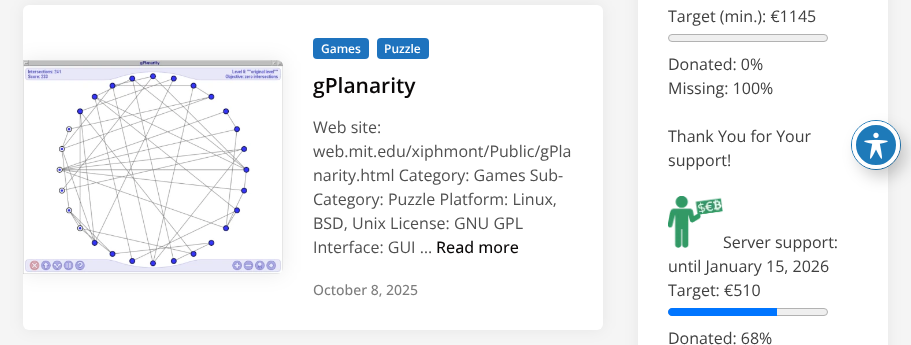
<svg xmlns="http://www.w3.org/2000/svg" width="911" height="345">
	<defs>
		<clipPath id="clip1"><rect x="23" y="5" width="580" height="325" rx="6" /></clipPath>
	</defs>
	<rect width="100%" height="100%" fill="#F5F5F5" />
	<rect x="23" y="5" width="580" height="325" rx="6" fill="#000000" fill-opacity="0.06" filter="blur(7.5px)" />
	<rect x="23" y="5" width="580" height="325" rx="6" fill="#FFFFFF" />
	<rect x="313" y="38" width="56" height="21" rx="4" fill="#1E73BE" />
	<g clip-path="url(#clip1)">
		<rect x="23" y="60" width="260" height="214" rx="6" fill="#000000" fill-opacity="0.08" filter="blur(10px)" />
	</g>
	<image x="23" y="60" width="260" height="214" href="assets/img1.png" />
	<text x="321" y="53" font-family="Open Sans" font-size="12" font-weight="600" fill="#FFFFFF">Games</text>
	<rect x="377" y="38" width="52" height="21" rx="4" fill="#1E73BE" />
	<text x="384" y="53" font-family="Open Sans" font-size="12" font-weight="600" fill="#FFFFFF">Puzzle</text>
	<text x="313" y="93" font-family="Open Sans" font-size="21" font-weight="600" fill="#0A0808">gPlanarity</text>
	<g font-family="Open Sans" font-size="16" fill="#505050">
		<text x="313" y="133">Web site:</text>
		<text x="313" y="157">web.mit.edu/xiphmont/Public/gPla</text>
		<text x="313" y="181">narity.html Category: Games Sub-</text>
		<text x="313" y="205">Category: Puzzle Platform: Linux,</text>
		<text x="313" y="229">BSD, Unix License: GNU GPL</text>
		<text x="313" y="253">Interface: GUI …</text>
	</g>
	<text x="436" y="253" font-family="Open Sans" font-size="16" font-weight="500" fill="#0A0808">Read more</text>
	<text x="313" y="295" font-family="Open Sans" font-size="14" font-weight="500" fill="#7D7D7D">October 8, 2025</text>
	<rect x="638" y="-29" width="250" height="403" rx="6" fill="#000000" fill-opacity="0.06" filter="blur(7.5px)" />
	<rect x="638" y="0" width="250" height="345" fill="#FFFFFF" />
	<text x="668" y="22" font-family="Open Sans" font-size="16" fill="#404040">Target (min.): €1145</text>
	<rect x="668.5" y="34.5" width="159" height="7" rx="3.5" fill="#EFEFEF" stroke="#B2B2B2" />
	<g font-family="Open Sans" font-size="16" fill="#404040">
		<text x="668" y="70">Donated: 0%</text>
		<text x="668" y="94">Missing: 100%</text>
		<text x="668" y="142">Thank You for Your</text>
		<text x="668" y="166">support!</text>
	</g>
	<image x="668" y="196" width="55" height="52" href="assets/img2.png" />
	<g font-family="Open Sans" font-size="16" fill="#404040">
		<text x="723" y="248">Server support:</text>
		<text x="668" y="272">until January 15, 2026</text>
		<text x="668" y="296">Target: €510</text>
	</g>
	<rect x="668.5" y="308.5" width="159" height="7" rx="3.5" fill="#EFEFEF" stroke="#B2B2B2" />
	<path d="M672 308H777V316H672C670 316 668 314 668 312C668 310 670 308 672 308Z" fill="#0075FF" />
	<text x="668" y="344" font-family="Open Sans" font-size="16" fill="#404040">Donated: 68%</text>
	<circle cx="876" cy="145" r="24.5" fill="none" stroke="#1E7AB9" />
	<rect x="858" y="129" width="48" height="48" rx="24" fill="#000000" fill-opacity="0.2" filter="blur(8px)" />
	<circle cx="876" cy="145" r="22" fill="#1E7AB9" stroke="#FFFFFF" stroke-width="4" />
	<image x="864" y="132" width="24" height="27" href="assets/img3.png" />
</svg>
